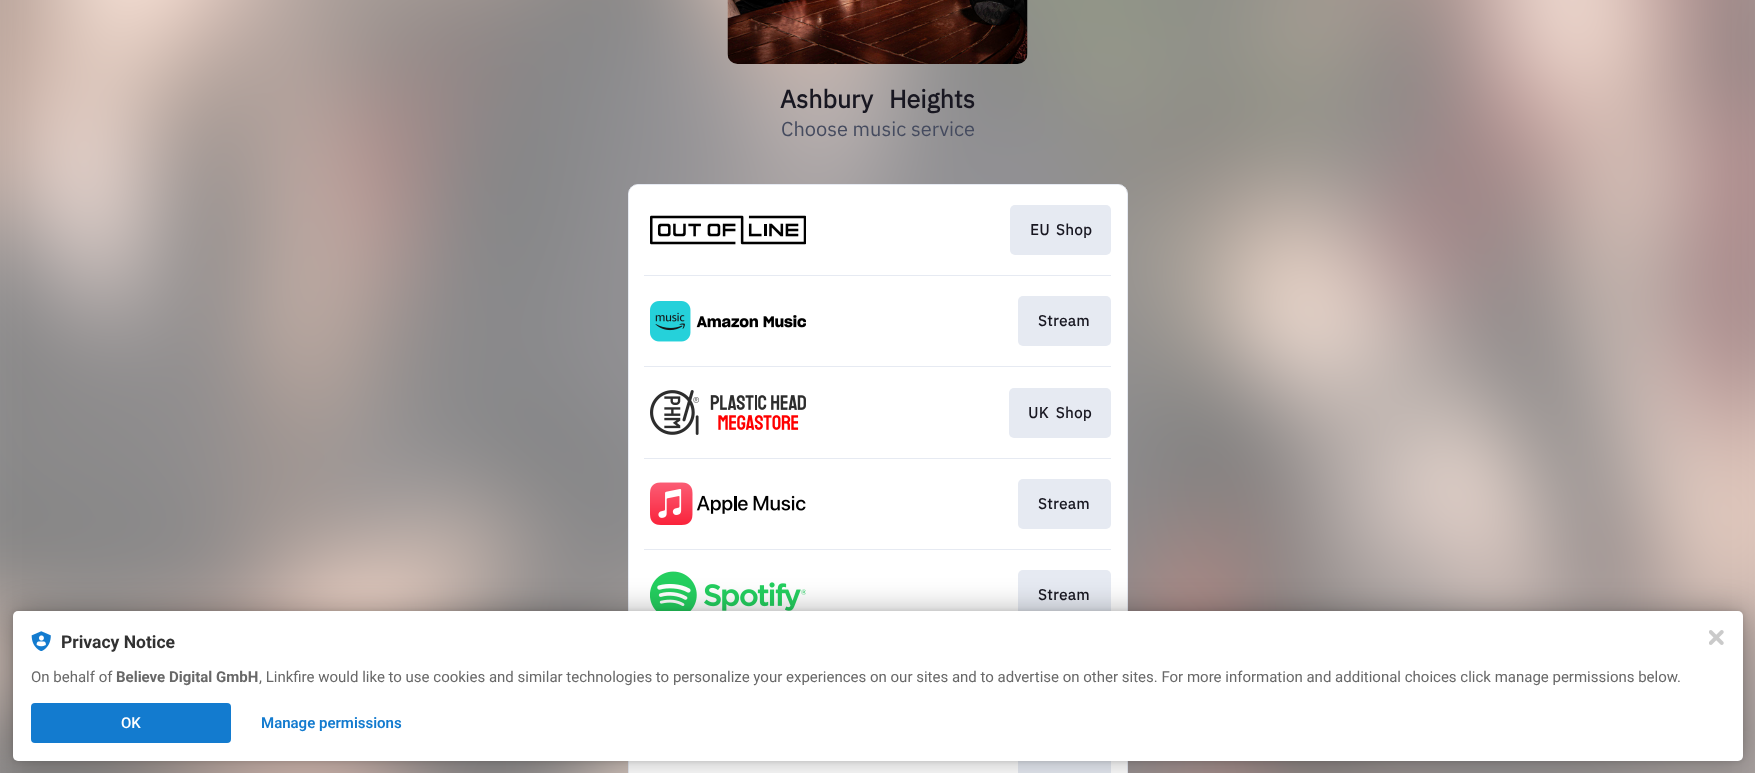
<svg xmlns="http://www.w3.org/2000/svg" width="1755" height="773">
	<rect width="100%" height="100%" fill="#FFFFFF" />
	<image x="0" y="0" width="1755" height="773" href="assets/img1.png" />
	<image x="727" y="0" width="301" height="64" href="assets/img2.png" />
	<text x="780" y="108" word-spacing="10" font-family="IBM Plex Sans" font-size="25" font-weight="700" fill="#181721">Ashbury Heights</text>
	<text x="781" y="136" font-family="IBM Plex Sans" font-size="20" fill="#454B5F">Choose music service</text>
	<rect x="628.5" y="184.5" width="499" height="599" rx="9.5" fill="#FFFFFF" stroke="#E6EAF2" />
	<rect x="629" y="185" width="497" height="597" rx="9" fill="#FFFFFF" />
	<image x="650" y="215" width="156" height="30" href="assets/img3.png" />
	<rect x="1010" y="205" width="101" height="50" rx="5" fill="#E6EAF2" />
	<text x="1030" y="235" word-spacing="2" font-family="IBM Plex Sans" font-size="15" font-weight="700" letter-spacing="0.5" fill="#181721">EU Shop</text>
	<rect x="644" y="275" width="467" height="1" fill="#E6EAF2" />
	<image x="650" y="301" width="156" height="41" href="assets/img4.png" />
	<rect x="1018" y="296" width="93" height="50" rx="5" fill="#E6EAF2" />
	<text x="1038" y="326" font-family="IBM Plex Sans" font-size="15" font-weight="700" letter-spacing="0.5" fill="#181721">Stream</text>
	<rect x="644" y="366" width="467" height="1" fill="#E6EAF2" />
	<image x="650" y="390" width="156" height="45" href="assets/img5.png" />
	<rect x="1009" y="388" width="102" height="50" rx="5" fill="#E6EAF2" />
	<text x="1028" y="418" word-spacing="3" font-family="IBM Plex Sans" font-size="15" font-weight="700" letter-spacing="0.5" fill="#181721">UK Shop</text>
	<rect x="644" y="458" width="467" height="1" fill="#E6EAF2" />
	<image x="650" y="482" width="156" height="43" href="assets/img6.png" />
	<rect x="1018" y="479" width="93" height="50" rx="5" fill="#E6EAF2" />
	<text x="1038" y="509" font-family="IBM Plex Sans" font-size="15" font-weight="700" letter-spacing="0.5" fill="#181721">Stream</text>
	<rect x="644" y="549" width="467" height="1" fill="#E6EAF2" />
	<image x="650" y="571" width="156" height="40" href="assets/img7.png" />
	<rect x="1018" y="570" width="93" height="50" rx="5" fill="#E6EAF2" />
	<text x="1038" y="600" font-family="IBM Plex Sans" font-size="15" font-weight="700" letter-spacing="0.5" fill="#181721">Stream</text>
	<rect x="1018" y="761" width="93" height="12" fill="#E6EAF2" />
	<rect x="13" y="611" width="1730" height="150" rx="5" fill="#000000" fill-opacity="0.12" filter="blur(2.5px)" />
	<rect x="13" y="611" width="1730" height="150" rx="5" fill="#000000" fill-opacity="0.3" filter="blur(15px)" />
	<rect x="13" y="611" width="1730" height="150" rx="5" fill="#FFFFFF" />
	<image x="31" y="631" width="20" height="20" href="assets/img8.png" />
	<text x="61" y="648" font-family="Roboto" font-size="17.5" font-weight="700" fill="#323232">Privacy Notice</text>
	<text x="31" y="682" font-family="Roboto" font-size="15" fill="#686868">On behalf of</text>
	<text x="116" y="682" font-family="Roboto" font-size="15" font-weight="700" fill="#686868">Believe Digital GmbH</text>
	<text x="259" y="682" font-family="Roboto" font-size="15" fill="#686868">, Linkfire would like to use cookies and similar technologies to personalize your experiences on our sites and to advertise on other sites. For more information and additional choices click manage permissions below.</text>
	<rect x="31" y="703" width="200" height="40" rx="4" fill="#137BCF" />
	<text x="121" y="728" font-family="Roboto" font-size="15" font-weight="500" fill="#FFFFFF">OK</text>
	<text x="261" y="728" font-family="Roboto" font-size="15" font-weight="600" fill="#137BCF">Manage permissions</text>
	<image x="1709" y="630" width="15" height="15" href="assets/img9.png" />
</svg>
